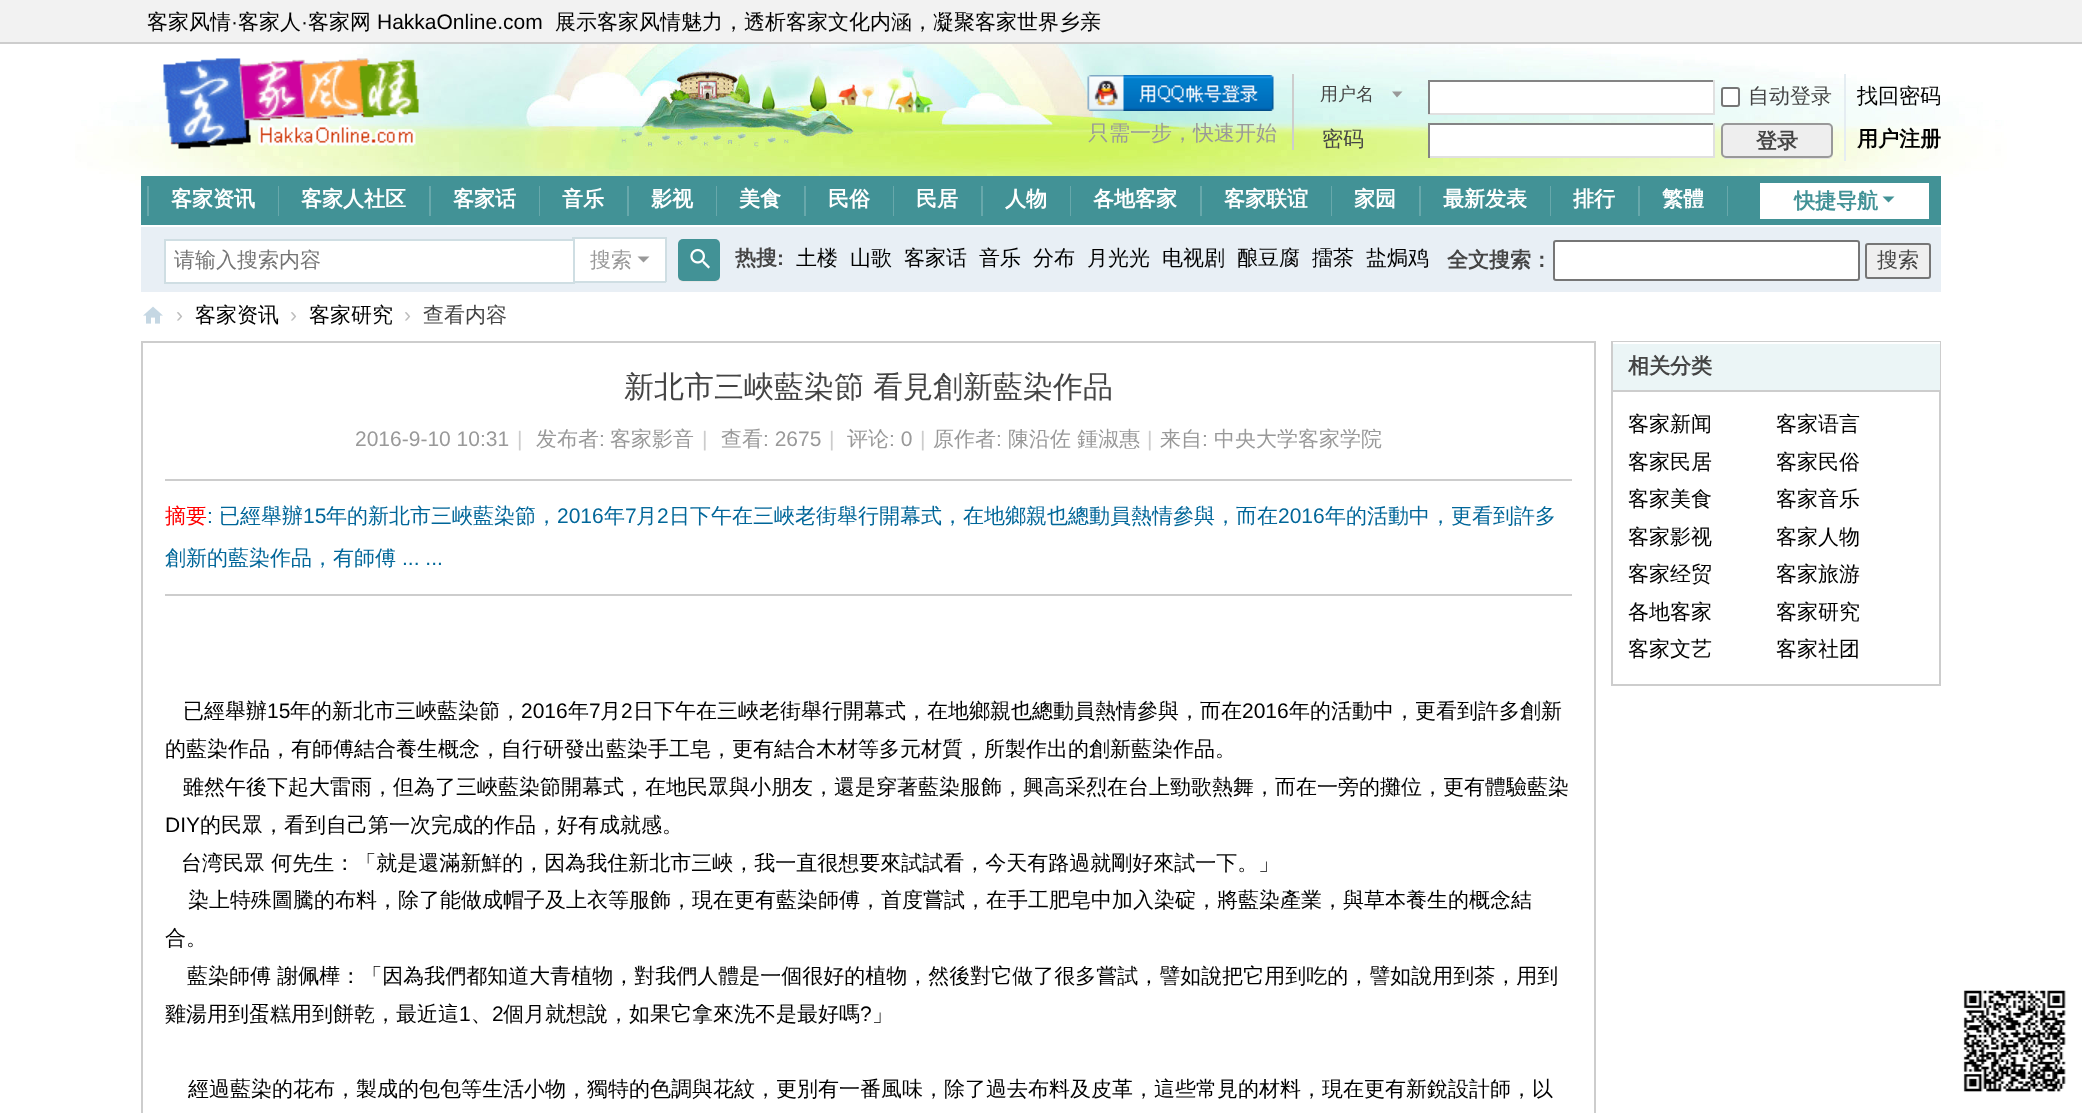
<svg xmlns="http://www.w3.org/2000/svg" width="2082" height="1113">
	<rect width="100%" height="100%" fill="#FFFFFF" />
	<image x="75" y="44" width="1938" height="220" href="assets/img1.png" />
	<rect x="0" y="0" width="2082" height="42" fill="#F2F2F2" />
	<rect x="0" y="42" width="2082" height="2" fill="#CDCDCD" />
	<text x="147" y="29" font-family="WenQuanYi Zen Hei" font-size="21" font-weight="500" fill="#000000">客家风情</text>
	<text x="231" y="29" font-family="Liberation Sans" font-size="21" fill="#000000">·</text>
	<text x="238" y="29" font-family="WenQuanYi Zen Hei" font-size="21" font-weight="500" fill="#000000">客家人</text>
	<text x="301" y="29" font-family="Liberation Sans" font-size="21" fill="#000000">·</text>
	<text x="308" y="29" font-family="WenQuanYi Zen Hei" font-size="21" font-weight="500" fill="#000000">客家网</text>
	<text x="377" y="29" font-family="Liberation Sans" font-size="21" fill="#000000">HakkaOnline.com</text>
	<text x="555" y="29" font-family="WenQuanYi Zen Hei" font-size="21" font-weight="500" fill="#000000">展示客家风情魅力，透析客家文化内涵，凝聚客家世界乡亲</text>
	<image x="163" y="58" width="256" height="91" href="assets/img2.png" />
	<rect x="1292" y="74" width="2" height="76" fill="#CDCDCD" />
	<image x="1087" y="75" width="187" height="36" href="assets/img3.png" />
	<text x="1088" y="140" font-family="WenQuanYi Zen Hei" font-size="21" font-weight="500" fill="#999999">只需一步，快速开始</text>
	<path d="M1402.5 91.5H1392L1397 97.5Z" fill="#999999" />
	<text x="1320" y="100" font-family="WenQuanYi Zen Hei" font-size="18" font-weight="500" fill="#444444">用户名</text>
	<rect x="1430" y="82" width="283" height="31" fill="#FFFFFF" />
	<rect x="1428" y="80" width="287" height="2" fill="#848484" />
	<rect x="1713" y="80" width="2" height="34" fill="#E0E0E0" />
	<rect x="1428" y="113" width="287" height="2" fill="#E0E0E0" />
	<rect x="1428" y="80" width="2" height="34" fill="#848484" />
	<rect x="1722" y="88" width="17" height="18" rx="2" fill="#FFFFFF" stroke="#767676" stroke-width="2" />
	<text x="1748" y="103" font-family="WenQuanYi Zen Hei" font-size="21" font-weight="500" fill="#444444">自动登录</text>
	<text x="1857" y="103" font-family="WenQuanYi Zen Hei" font-size="21" font-weight="500" fill="#000000">找回密码</text>
	<text x="1322" y="146" font-family="WenQuanYi Zen Hei" font-size="21" font-weight="500" fill="#444444">密码</text>
	<rect x="1430" y="125" width="283" height="31" fill="#FFFFFF" />
	<rect x="1428" y="123" width="287" height="2" fill="#848484" />
	<rect x="1713" y="123" width="2" height="35" fill="#E0E0E0" />
	<rect x="1428" y="156" width="287" height="2" fill="#E0E0E0" />
	<rect x="1428" y="123" width="2" height="35" fill="#848484" />
	<rect x="1844" y="74" width="2" height="87" fill="#E5EDF2" />
	<path d="M1721 155C1722 157 1724 159 1726 159H1828C1831 159 1833 157 1833 154V153C1833 155 1831 158 1828 158H1725C1723 158 1722 157 1721 155Z" fill="#E5E5E5" />
	<rect x="1722" y="124" width="110" height="33" rx="4" fill="#EEEEEE" stroke="#999999" stroke-width="2" />
	<text x="1756" y="148" font-family="WenQuanYi Zen Hei" font-size="21" font-weight="700" fill="#444444">登录</text>
	<text x="1857" y="146" font-family="WenQuanYi Zen Hei" font-size="21" font-weight="700" fill="#000000">用户注册</text>
	<rect x="141" y="176" width="1800" height="49" fill="#429296" />
	<rect x="147" y="186" width="2" height="30" fill="#68A8AB" />
	<rect x="278" y="186" width="1" height="30" fill="#68A8AB" />
	<text x="171" y="206" font-family="WenQuanYi Zen Hei" font-size="21" font-weight="700" fill="#FFFFFF">客家资讯</text>
	<rect x="429" y="186" width="2" height="30" fill="#68A8AB" />
	<text x="301" y="206" font-family="WenQuanYi Zen Hei" font-size="21" font-weight="700" fill="#FFFFFF">客家人社区</text>
	<rect x="539" y="186" width="1" height="30" fill="#68A8AB" />
	<text x="453" y="206" font-family="WenQuanYi Zen Hei" font-size="21" font-weight="700" fill="#FFFFFF">客家话</text>
	<rect x="627" y="186" width="2" height="30" fill="#68A8AB" />
	<text x="562" y="206" font-family="WenQuanYi Zen Hei" font-size="21" font-weight="700" fill="#FFFFFF">音乐</text>
	<rect x="716" y="186" width="1" height="30" fill="#68A8AB" />
	<text x="651" y="206" font-family="WenQuanYi Zen Hei" font-size="21" font-weight="700" fill="#FFFFFF">影视</text>
	<rect x="804" y="186" width="2" height="30" fill="#68A8AB" />
	<text x="739" y="206" font-family="WenQuanYi Zen Hei" font-size="21" font-weight="700" fill="#FFFFFF">美食</text>
	<rect x="893" y="186" width="1" height="30" fill="#68A8AB" />
	<text x="828" y="206" font-family="WenQuanYi Zen Hei" font-size="21" font-weight="700" fill="#FFFFFF">民俗</text>
	<rect x="981" y="186" width="2" height="30" fill="#68A8AB" />
	<text x="916" y="206" font-family="WenQuanYi Zen Hei" font-size="21" font-weight="700" fill="#FFFFFF">民居</text>
	<rect x="1070" y="186" width="1" height="30" fill="#68A8AB" />
	<text x="1005" y="206" font-family="WenQuanYi Zen Hei" font-size="21" font-weight="700" fill="#FFFFFF">人物</text>
	<rect x="1200" y="186" width="2" height="30" fill="#68A8AB" />
	<text x="1093" y="206" font-family="WenQuanYi Zen Hei" font-size="21" font-weight="700" fill="#FFFFFF">各地客家</text>
	<rect x="1331" y="186" width="1" height="30" fill="#68A8AB" />
	<text x="1224" y="206" font-family="WenQuanYi Zen Hei" font-size="21" font-weight="700" fill="#FFFFFF">客家联谊</text>
	<rect x="1419" y="186" width="2" height="30" fill="#68A8AB" />
	<text x="1354" y="206" font-family="WenQuanYi Zen Hei" font-size="21" font-weight="700" fill="#FFFFFF">家园</text>
	<rect x="1550" y="186" width="1" height="30" fill="#68A8AB" />
	<text x="1443" y="206" font-family="WenQuanYi Zen Hei" font-size="21" font-weight="700" fill="#FFFFFF">最新发表</text>
	<rect x="1638" y="186" width="2" height="30" fill="#68A8AB" />
	<text x="1573" y="206" font-family="WenQuanYi Zen Hei" font-size="21" font-weight="700" fill="#FFFFFF">排行</text>
	<rect x="1727" y="186" width="1" height="30" fill="#68A8AB" />
	<text x="1662" y="206" font-family="WenQuanYi Zen Hei" font-size="21" font-weight="700" fill="#FFFFFF">繁體</text>
	<rect x="1760" y="183" width="169" height="36" fill="#FFFFFF" />
	<text x="1794" y="208" font-family="WenQuanYi Zen Hei" font-size="21" font-weight="700" fill="#429296">快捷导航</text>
	<path d="M1882.5 196.5H1894.5L1888.5 202.5Z" fill="#429296" />
	<rect x="141" y="227" width="1800" height="63" fill="#E8EFF5" />
	<rect x="447" y="225" width="1128" height="2" fill="#FFFFFF" />
	<rect x="141" y="290" width="1800" height="2" fill="#E9EFF5" />
	<rect x="572" y="237" width="94" height="2" fill="#CFDEE3" />
	<rect x="665" y="237" width="2" height="45" fill="#CFDEE3" />
	<rect x="572" y="281" width="94" height="2" fill="#CFDEE3" />
	<rect x="165" y="240" width="409" height="43" fill="#FFFFFF" stroke="#CFDEE3" stroke-width="2" />
	<text x="174" y="267" font-family="WenQuanYi Zen Hei" font-size="21" font-weight="500" fill="#757575">请输入搜索内容</text>
	<rect x="575" y="239" width="90" height="42" fill="#FFFFFF" />
	<text x="590" y="267" font-family="WenQuanYi Zen Hei" font-size="21" font-weight="500" fill="#999999">搜索</text>
	<path d="M637.5 256.5H649.5L643.5 262.5Z" fill="#999999" />
	<path d="M678 276C678 283 683 282 688 282H710C715 282 720 283 720 276C720 278 718 280 716 280H682C680 280 678 278 678 276Z" fill="#E5E5E5" />
	<rect x="678" y="239" width="42" height="42" rx="5" fill="#429296" />
	<image x="690" y="248" width="20" height="21" href="assets/img4.png" />
	<text x="735" y="265" font-family="WenQuanYi Zen Hei" font-size="21" font-weight="700" fill="#444444">热搜</text>
	<text x="777" y="265" font-family="Liberation Sans" font-size="21" font-weight="700" fill="#444444">:</text>
	<g font-family="WenQuanYi Zen Hei" font-size="21" font-weight="500" fill="#000000">
		<text x="796" y="265">土楼</text>
		<text x="850" y="265">山歌</text>
		<text x="904" y="265">客家话</text>
		<text x="979" y="265">音乐</text>
		<text x="1033" y="265">分布</text>
		<text x="1087" y="265">月光光</text>
		<text x="1162" y="265">电视剧</text>
		<text x="1237" y="265">酿豆腐</text>
		<text x="1312" y="265">擂茶</text>
		<text x="1366" y="265">盐焗鸡</text>
	</g>
	<text x="1447" y="267" font-family="WenQuanYi Zen Hei" font-size="21" font-weight="700" fill="#444444">全文搜索：</text>
	<rect x="1554" y="241" width="305" height="39" rx="2" fill="#FFFFFF" stroke="#767676" stroke-width="2" />
	<rect x="1866" y="244" width="64" height="34" rx="2" fill="#EFEFEF" stroke="#767676" stroke-width="2" />
	<text x="1877" y="267" font-family="WenQuanYi Zen Hei" font-size="21" font-weight="500" fill="#444444">搜索</text>
	<image x="143" y="306" width="20" height="18" href="assets/img5.png" />
	<text x="176" y="322" font-family="Liberation Sans" font-size="21" fill="#BDBDBD">›</text>
	<text x="195" y="322" font-family="WenQuanYi Zen Hei" font-size="21" font-weight="500" fill="#000000">客家资讯</text>
	<text x="290" y="322" font-family="Liberation Sans" font-size="21" fill="#BDBDBD">›</text>
	<text x="309" y="322" font-family="WenQuanYi Zen Hei" font-size="21" font-weight="500" fill="#000000">客家研究</text>
	<text x="404" y="322" font-family="Liberation Sans" font-size="21" fill="#BDBDBD">›</text>
	<text x="423" y="322" font-family="WenQuanYi Zen Hei" font-size="21" font-weight="500" fill="#444444">查看内容</text>
	<rect x="142" y="342" width="1453" height="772" fill="none" stroke="#CDCDCD" stroke-width="2" />
	<rect x="165" y="479" width="1407" height="2" fill="#CDCDCD" />
	<g font-family="WenQuanYi Zen Hei" font-size="30" font-weight="500" fill="#444444">
		<text x="624" y="397">新北市三峽藍染節</text>
		<text x="873" y="397">看見創新藍染作品</text>
	</g>
	<text x="355" y="446" font-family="Liberation Sans" font-size="21" fill="#999999">2016-9-10 10:31</text>
	<text x="517" y="446" font-family="Liberation Sans" font-size="21" fill="#CCCCCC">|</text>
	<text x="536" y="446" font-family="WenQuanYi Zen Hei" font-size="21" font-weight="500" fill="#999999">发布者</text>
	<text x="599" y="446" font-family="Liberation Sans" font-size="21" fill="#999999">:</text>
	<text x="610" y="446" font-family="WenQuanYi Zen Hei" font-size="21" font-weight="500" fill="#999999">客家影音</text>
	<text x="702" y="446" font-family="Liberation Sans" font-size="21" fill="#CCCCCC">|</text>
	<text x="721" y="446" font-family="WenQuanYi Zen Hei" font-size="21" font-weight="500" fill="#999999">查看</text>
	<text x="763" y="446" font-family="Liberation Sans" font-size="21" fill="#999999">: 2675</text>
	<text x="829" y="446" font-family="Liberation Sans" font-size="21" fill="#CCCCCC">|</text>
	<text x="847" y="446" font-family="WenQuanYi Zen Hei" font-size="21" font-weight="500" fill="#999999">评论</text>
	<text x="889" y="446" font-family="Liberation Sans" font-size="21" fill="#999999">: 0</text>
	<text x="920" y="446" font-family="Liberation Sans" font-size="21" fill="#CCCCCC">|</text>
	<text x="933" y="446" font-family="WenQuanYi Zen Hei" font-size="21" font-weight="500" fill="#999999">原作者</text>
	<text x="996" y="446" font-family="Liberation Sans" font-size="21" fill="#999999">:</text>
	<text x="1008" y="446" font-family="WenQuanYi Zen Hei" font-size="21" font-weight="500" fill="#999999">陳沿佐 鍾淑惠</text>
	<text x="1147" y="446" font-family="Liberation Sans" font-size="21" fill="#CCCCCC">|</text>
	<text x="1160" y="446" font-family="WenQuanYi Zen Hei" font-size="21" font-weight="500" fill="#999999">来自</text>
	<text x="1202" y="446" font-family="Liberation Sans" font-size="21" fill="#999999">:</text>
	<text x="1214" y="446" font-family="WenQuanYi Zen Hei" font-size="21" font-weight="500" fill="#999999">中央大学客家学院</text>
	<rect x="165" y="594" width="1407" height="2" fill="#CDCDCD" />
	<text x="165" y="523" font-family="WenQuanYi Zen Hei" font-size="21" font-weight="500" fill="#FF0000">摘要</text>
	<text x="207" y="523" font-family="Liberation Sans" font-size="21" fill="#006699">:</text>
	<text x="219" y="523" font-family="WenQuanYi Zen Hei" font-size="21" font-weight="500" fill="#006699">已經舉辦</text>
	<text x="303" y="523" font-family="Liberation Sans" font-size="21" fill="#006699">15</text>
	<text x="326" y="523" font-family="WenQuanYi Zen Hei" font-size="21" font-weight="500" fill="#006699">年的新北市三峽藍染節，</text>
	<text x="557" y="523" font-family="Liberation Sans" font-size="21" fill="#006699">2016</text>
	<text x="604" y="523" font-family="WenQuanYi Zen Hei" font-size="21" font-weight="500" fill="#006699">年</text>
	<text x="625" y="523" font-family="Liberation Sans" font-size="21" fill="#006699">7</text>
	<text x="636" y="523" font-family="WenQuanYi Zen Hei" font-size="21" font-weight="500" fill="#006699">月</text>
	<text x="657" y="523" font-family="Liberation Sans" font-size="21" fill="#006699">2</text>
	<text x="669" y="523" font-family="WenQuanYi Zen Hei" font-size="21" font-weight="500" fill="#006699">日下午在三峽老街舉行開幕式，在地鄉親也總動員熱情參與，而在</text>
	<text x="1278" y="523" font-family="Liberation Sans" font-size="21" fill="#006699">2016</text>
	<g font-family="WenQuanYi Zen Hei" font-size="21" font-weight="500" fill="#006699">
		<text x="1325" y="523">年的活動中，更看到許多</text>
		<text x="165" y="565">創新的藍染作品，有師傅</text>
	</g>
	<text x="402" y="565" font-family="Liberation Sans" font-size="21" fill="#006699">... ...</text>
	<text x="183" y="718" font-family="WenQuanYi Zen Hei" font-size="21" font-weight="500" fill="#000000">已經舉辦</text>
	<text x="267" y="718" font-family="Liberation Sans" font-size="21" fill="#000000">15</text>
	<text x="290" y="718" font-family="WenQuanYi Zen Hei" font-size="21" font-weight="500" fill="#000000">年的新北市三峽藍染節，</text>
	<text x="521" y="718" font-family="Liberation Sans" font-size="21" fill="#000000">2016</text>
	<text x="568" y="718" font-family="WenQuanYi Zen Hei" font-size="21" font-weight="500" fill="#000000">年</text>
	<text x="589" y="718" font-family="Liberation Sans" font-size="21" fill="#000000">7</text>
	<text x="600" y="718" font-family="WenQuanYi Zen Hei" font-size="21" font-weight="500" fill="#000000">月</text>
	<text x="621" y="718" font-family="Liberation Sans" font-size="21" fill="#000000">2</text>
	<text x="633" y="718" font-family="WenQuanYi Zen Hei" font-size="21" font-weight="500" fill="#000000">日下午在三峽老街舉行開幕式，在地鄉親也總動員熱情參與，而在</text>
	<text x="1242" y="718" font-family="Liberation Sans" font-size="21" fill="#000000">2016</text>
	<g font-family="WenQuanYi Zen Hei" font-size="21" font-weight="500" fill="#000000">
		<text x="1289" y="718">年的活動中，更看到許多創新</text>
		<text x="165" y="756">的藍染作品，有師傅結合養生概念，自行研發出藍染手工皂，更有結合木材等多元材質，所製作出的創新藍染作品。</text>
		<text x="183" y="794">雖然午後下起大雷雨，但為了三峽藍染節開幕式，在地民眾與小朋友，還是穿著藍染服飾，興高采烈在台上勁歌熱舞，而在一旁的攤位，更有體驗藍染</text>
	</g>
	<text x="165" y="832" font-family="Liberation Sans" font-size="21" fill="#000000">DIY</text>
	<g font-family="WenQuanYi Zen Hei" font-size="21" font-weight="500" fill="#000000">
		<text x="200" y="832">的民眾，看到自己第一次完成的作品，好有成就感。</text>
		<text x="181" y="870">台湾民眾 何先生：「就是還滿新鮮的，因為我住新北市三峽，我一直很想要來試試看，今天有路過就剛好來試一下。」</text>
		<text x="188" y="907">染上特殊圖騰的布料，除了能做成帽子及上衣等服飾，現在更有藍染師傅，首度嘗試，在手工肥皂中加入染碇，將藍染產業，與草本養生的概念結</text>
		<text x="165" y="945">合。</text>
		<text x="187" y="983">藍染師傅 謝佩樺：「因為我們都知道大青植物，對我們人體是一個很好的植物，然後對它做了很多嘗試，譬如說把它用到吃的，譬如說用到茶，用到</text>
		<text x="165" y="1021">雞湯用到蛋糕用到餅乾，最近這</text>
	</g>
	<text x="459" y="1021" font-family="Liberation Sans" font-size="21" fill="#000000">1</text>
	<text x="471" y="1021" font-family="WenQuanYi Zen Hei" font-size="21" font-weight="500" fill="#000000">、</text>
	<text x="492" y="1021" font-family="Liberation Sans" font-size="21" fill="#000000">2</text>
	<text x="503" y="1021" font-family="WenQuanYi Zen Hei" font-size="21" font-weight="500" fill="#000000">個月就想說，如果它拿來洗不是最好嗎</text>
	<text x="860" y="1021" font-family="Liberation Sans" font-size="21" fill="#000000">?</text>
	<g font-family="WenQuanYi Zen Hei" font-size="21" font-weight="500" fill="#000000">
		<text x="872" y="1021">」</text>
		<text x="188" y="1096">經過藍染的花布，製成的包包等生活小物，獨特的色調與花紋，更別有一番風味，除了過去布料及皮革，這些常見的材料，現在更有新銳設計師，以</text>
	</g>
	<rect x="1612" y="342" width="328" height="343" fill="none" stroke="#CDCDCD" stroke-width="2" />
	<rect x="1613" y="344" width="327" height="46" fill="#EBF5F6" />
	<rect x="1613" y="342" width="327" height="2" fill="#FFFFFF" />
	<rect x="1613" y="390" width="327" height="2" fill="#CDCDCD" />
	<text x="1628" y="373" font-family="WenQuanYi Zen Hei" font-size="21" font-weight="700" fill="#444444">相关分类</text>
	<g font-family="WenQuanYi Zen Hei" font-size="21" font-weight="500" fill="#000000">
		<text x="1628" y="431">客家新闻</text>
		<text x="1776" y="431">客家语言</text>
		<text x="1628" y="469">客家民居</text>
		<text x="1776" y="469">客家民俗</text>
		<text x="1628" y="506">客家美食</text>
		<text x="1776" y="506">客家音乐</text>
		<text x="1628" y="544">客家影视</text>
		<text x="1776" y="544">客家人物</text>
		<text x="1628" y="581">客家经贸</text>
		<text x="1776" y="581">客家旅游</text>
		<text x="1628" y="619">各地客家</text>
		<text x="1776" y="619">客家研究</text>
		<text x="1628" y="656">客家文艺</text>
		<text x="1776" y="656">客家社团</text>
	</g>
	<image x="1963" y="990" width="103" height="102" href="assets/img6.png" />
</svg>
